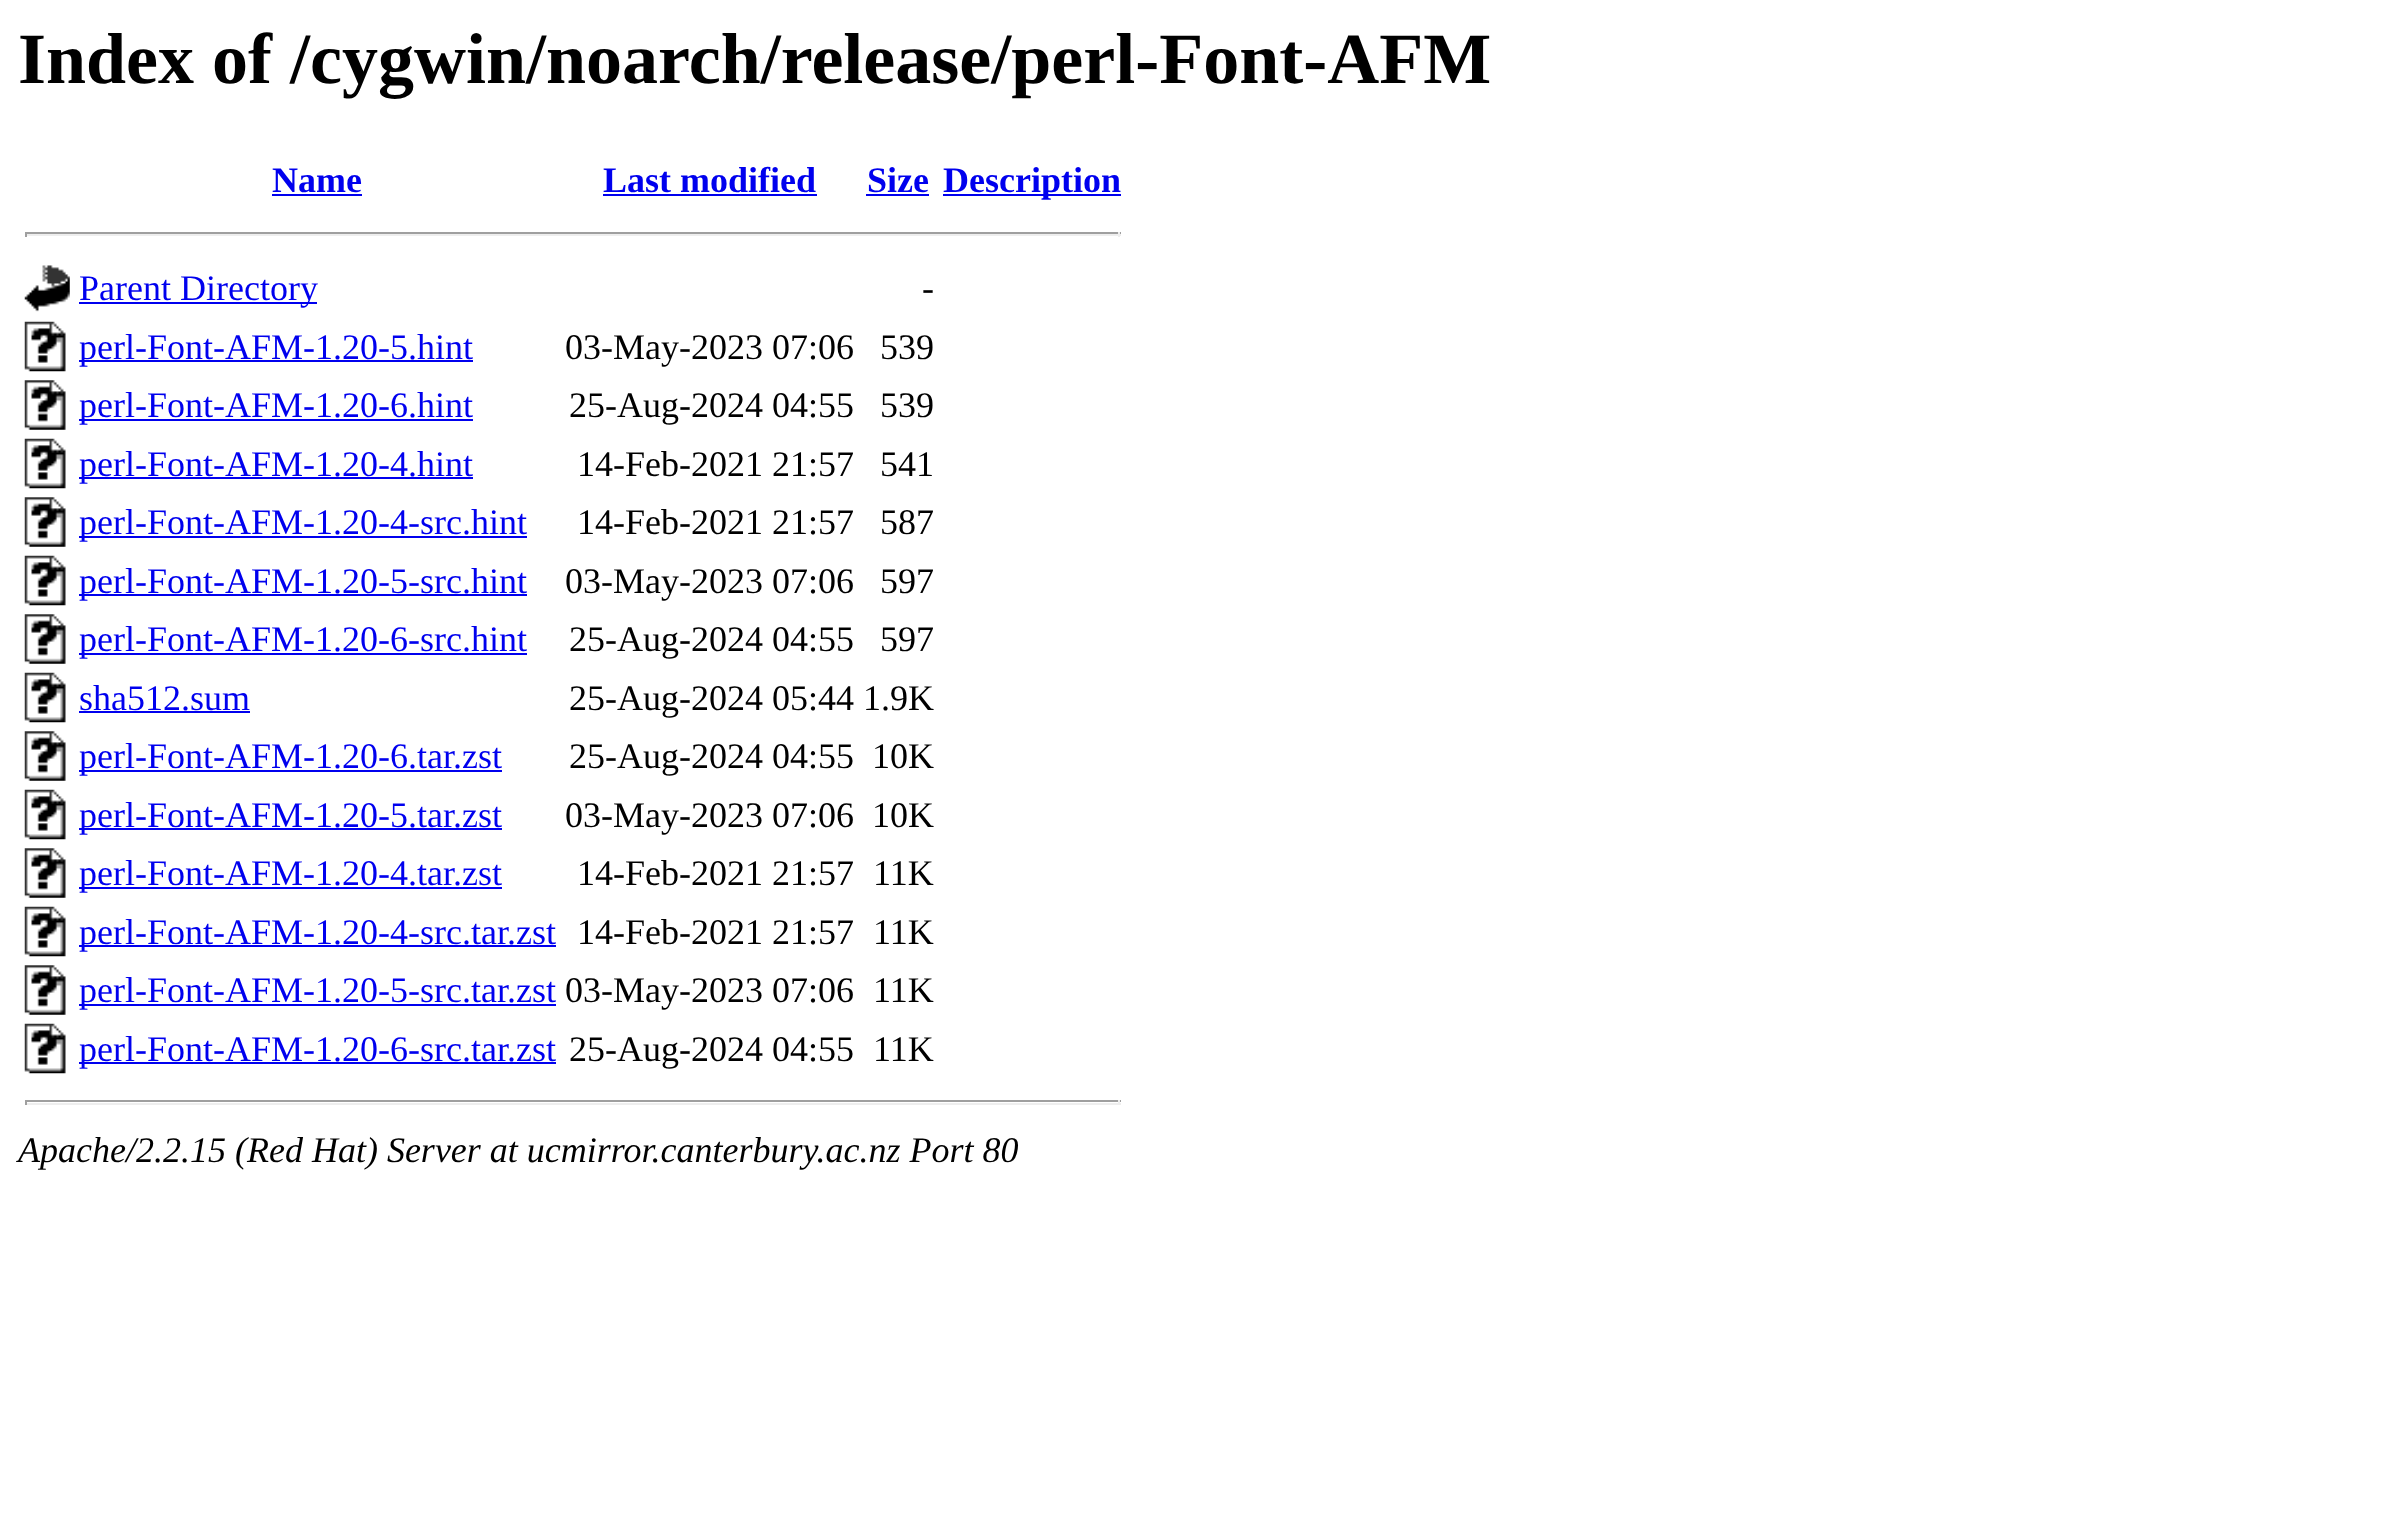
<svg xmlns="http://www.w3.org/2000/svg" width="2387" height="1525">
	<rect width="100%" height="100%" fill="#FFFFFF" />
	<text x="18" y="83" font-family="Liberation Serif" font-size="72" font-weight="700" fill="#000000">Index of /cygwin/noarch/release/perl-Font-AFM</text>
	<text x="272" y="192" font-family="Liberation Serif" font-size="36" font-weight="700" fill="#0000EE">Name</text>
	<rect x="272" y="194" width="90" height="2" fill="#0000EE" />
	<text x="603" y="192" font-family="Liberation Serif" font-size="36" font-weight="700" fill="#0000EE">Last modified</text>
	<rect x="603" y="194" width="214" height="2" fill="#0000EE" />
	<text x="867" y="192" font-family="Liberation Serif" font-size="36" font-weight="700" fill="#0000EE">Size</text>
	<rect x="866" y="194" width="63" height="2" fill="#0000EE" />
	<rect x="943" y="194" width="178" height="2" fill="#0000EE" />
	<text x="943" y="192" font-family="Liberation Serif" font-size="36" font-weight="700" fill="#0000EE">Description</text>
	<rect x="25" y="232" width="1096" height="2" fill="#9F9F9F" />
	<rect x="1118" y="232" width="2" height="5" fill="#EEEEEE" />
	<rect x="25" y="234" width="1096" height="2" fill="#EEEEEE" />
	<rect x="25" y="232" width="2" height="5" fill="#9F9F9F" />
	<image x="24" y="265" width="46" height="47" href="assets/img1.png" />
	<rect x="79" y="302" width="238" height="2" fill="#0000EE" />
	<text x="79" y="300" font-family="Liberation Serif" font-size="36" fill="#0000EE">Parent Directory</text>
	<text x="922" y="300" font-family="Liberation Serif" font-size="36" fill="#000000">-</text>
	<image x="24" y="321" width="42" height="51" href="assets/img2.png" />
	<rect x="79" y="360" width="394" height="2" fill="#0000EE" />
	<text x="79" y="359" font-family="Liberation Serif" font-size="36" fill="#0000EE">perl-Font-AFM-1.20-5.hint</text>
	<g font-family="Liberation Serif" font-size="36" fill="#000000">
		<text x="565" y="359">03-May-2023 07:06</text>
		<text x="880" y="359">539</text>
	</g>
	<image x="24" y="380" width="42" height="50" href="assets/img3.png" />
	<rect x="79" y="419" width="394" height="2" fill="#0000EE" />
	<text x="79" y="417" font-family="Liberation Serif" font-size="36" fill="#0000EE">perl-Font-AFM-1.20-6.hint</text>
	<g font-family="Liberation Serif" font-size="36" fill="#000000">
		<text x="569" y="417">25-Aug-2024 04:55</text>
		<text x="880" y="417">539</text>
	</g>
	<image x="24" y="438" width="42" height="51" href="assets/img2.png" />
	<rect x="79" y="477" width="394" height="2" fill="#0000EE" />
	<text x="79" y="476" font-family="Liberation Serif" font-size="36" fill="#0000EE">perl-Font-AFM-1.20-4.hint</text>
	<g font-family="Liberation Serif" font-size="36" fill="#000000">
		<text x="577" y="476">14-Feb-2021 21:57</text>
		<text x="880" y="476">541</text>
	</g>
	<image x="24" y="497" width="42" height="50" href="assets/img3.png" />
	<rect x="79" y="536" width="448" height="2" fill="#0000EE" />
	<text x="79" y="534" font-family="Liberation Serif" font-size="36" fill="#0000EE">perl-Font-AFM-1.20-4-src.hint</text>
	<g font-family="Liberation Serif" font-size="36" fill="#000000">
		<text x="577" y="534">14-Feb-2021 21:57</text>
		<text x="880" y="534">587</text>
	</g>
	<image x="24" y="555" width="42" height="51" href="assets/img4.png" />
	<rect x="79" y="594" width="448" height="2" fill="#0000EE" />
	<text x="79" y="593" font-family="Liberation Serif" font-size="36" fill="#0000EE">perl-Font-AFM-1.20-5-src.hint</text>
	<g font-family="Liberation Serif" font-size="36" fill="#000000">
		<text x="565" y="593">03-May-2023 07:06</text>
		<text x="880" y="593">597</text>
	</g>
	<image x="24" y="614" width="42" height="50" href="assets/img3.png" />
	<rect x="79" y="653" width="448" height="2" fill="#0000EE" />
	<text x="79" y="651" font-family="Liberation Serif" font-size="36" fill="#0000EE">perl-Font-AFM-1.20-6-src.hint</text>
	<g font-family="Liberation Serif" font-size="36" fill="#000000">
		<text x="569" y="651">25-Aug-2024 04:55</text>
		<text x="880" y="651">597</text>
	</g>
	<image x="24" y="672" width="42" height="51" href="assets/img2.png" />
	<text x="79" y="710" font-family="Liberation Serif" font-size="36" fill="#0000EE">sha512.sum</text>
	<rect x="79" y="711" width="171" height="2" fill="#0000EE" />
	<text x="569" y="710" font-family="Liberation Serif" font-size="36" fill="#000000">25-Aug-2024 05:44 1.9K</text>
	<image x="24" y="731" width="42" height="50" href="assets/img3.png" />
	<rect x="79" y="770" width="423" height="2" fill="#0000EE" />
	<text x="79" y="768" font-family="Liberation Serif" font-size="36" fill="#0000EE">perl-Font-AFM-1.20-6.tar.zst</text>
	<g font-family="Liberation Serif" font-size="36" fill="#000000">
		<text x="569" y="768">25-Aug-2024 04:55</text>
		<text x="872" y="768">10K</text>
	</g>
	<image x="24" y="789" width="42" height="51" href="assets/img2.png" />
	<rect x="79" y="828" width="423" height="2" fill="#0000EE" />
	<text x="79" y="827" font-family="Liberation Serif" font-size="36" fill="#0000EE">perl-Font-AFM-1.20-5.tar.zst</text>
	<g font-family="Liberation Serif" font-size="36" fill="#000000">
		<text x="565" y="827">03-May-2023 07:06</text>
		<text x="872" y="827">10K</text>
	</g>
	<image x="24" y="848" width="42" height="50" href="assets/img3.png" />
	<rect x="79" y="887" width="423" height="2" fill="#0000EE" />
	<text x="79" y="885" font-family="Liberation Serif" font-size="36" fill="#0000EE">perl-Font-AFM-1.20-4.tar.zst</text>
	<g font-family="Liberation Serif" font-size="36" fill="#000000">
		<text x="577" y="885">14-Feb-2021 21:57</text>
		<text x="873" y="885">11K</text>
	</g>
	<image x="24" y="906" width="42" height="51" href="assets/img2.png" />
	<rect x="79" y="945" width="477" height="2" fill="#0000EE" />
	<text x="79" y="944" font-family="Liberation Serif" font-size="36" fill="#0000EE">perl-Font-AFM-1.20-4-src.tar.zst</text>
	<g font-family="Liberation Serif" font-size="36" fill="#000000">
		<text x="577" y="944">14-Feb-2021 21:57</text>
		<text x="873" y="944">11K</text>
	</g>
	<image x="24" y="965" width="42" height="50" href="assets/img3.png" />
	<rect x="79" y="1004" width="477" height="2" fill="#0000EE" />
	<text x="79" y="1002" font-family="Liberation Serif" font-size="36" fill="#0000EE">perl-Font-AFM-1.20-5-src.tar.zst</text>
	<g font-family="Liberation Serif" font-size="36" fill="#000000">
		<text x="565" y="1002">03-May-2023 07:06</text>
		<text x="873" y="1002">11K</text>
	</g>
	<image x="24" y="1023" width="42" height="51" href="assets/img2.png" />
	<rect x="79" y="1062" width="477" height="2" fill="#0000EE" />
	<text x="79" y="1061" font-family="Liberation Serif" font-size="36" fill="#0000EE">perl-Font-AFM-1.20-6-src.tar.zst</text>
	<g font-family="Liberation Serif" font-size="36" fill="#000000">
		<text x="569" y="1061">25-Aug-2024 04:55</text>
		<text x="873" y="1061">11K</text>
	</g>
	<rect x="25" y="1100" width="1096" height="2" fill="#9F9F9F" />
	<rect x="1118" y="1100" width="2" height="5" fill="#EEEEEE" />
	<rect x="25" y="1103" width="1096" height="2" fill="#EEEEEE" />
	<rect x="25" y="1100" width="2" height="5" fill="#9F9F9F" />
	<text x="18" y="1162" font-family="Liberation Serif" font-size="36" font-style="italic" fill="#000000">Apache/2.2.15 (Red Hat) Server at ucmirror.canterbury.ac.nz Port 80</text>
</svg>
